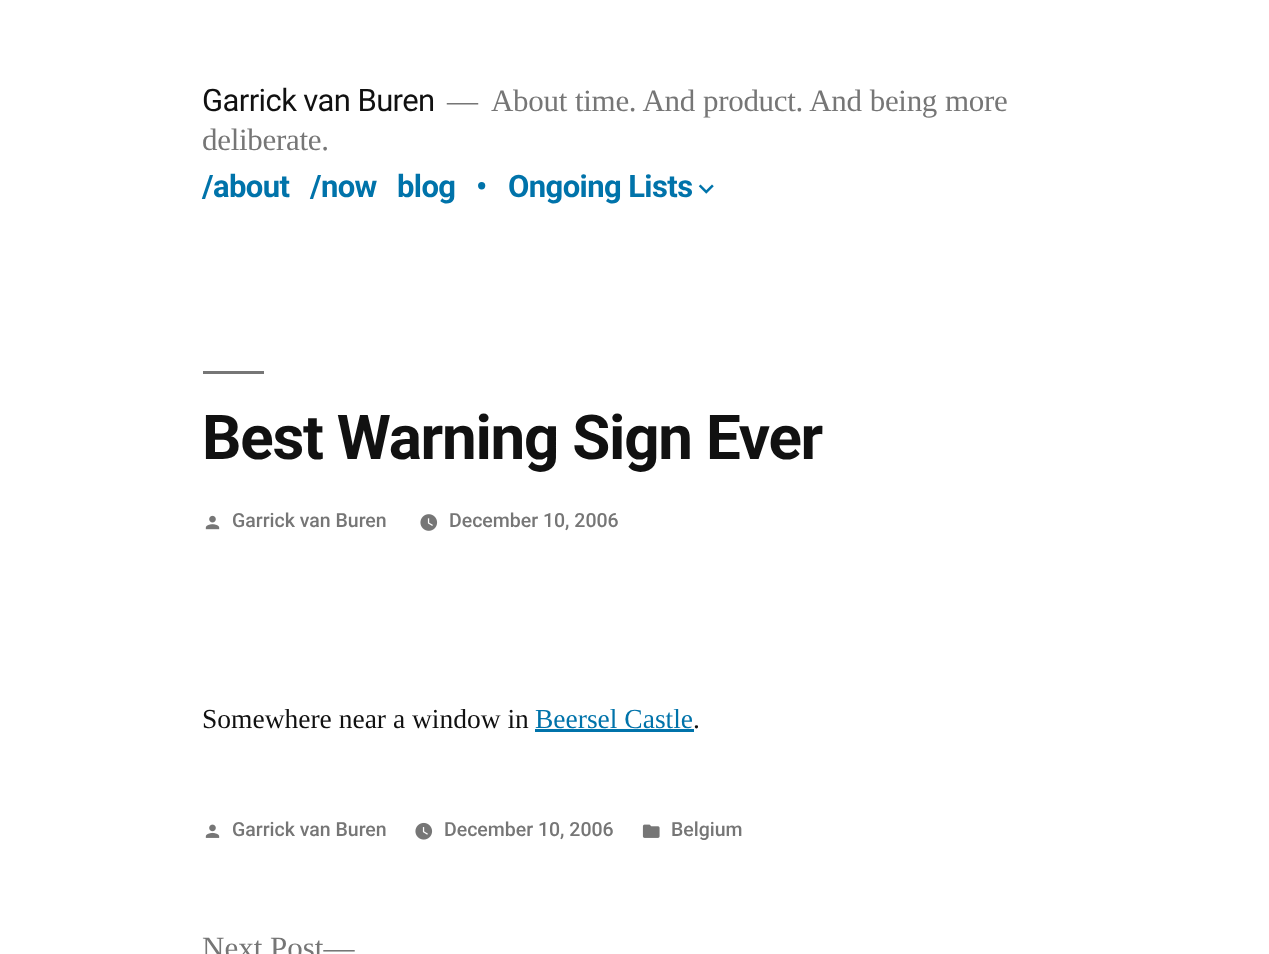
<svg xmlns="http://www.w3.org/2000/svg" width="1269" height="954">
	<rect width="100%" height="100%" fill="#FFFFFF" />
	<text x="202" y="111" font-family="Roboto" font-size="31" letter-spacing="-0.6" fill="#111111">Garrick van Buren</text>
	<g font-family="Liberation Serif" font-size="31" letter-spacing="-0.3" fill="#767676">
		<text x="447" y="111">—</text>
		<text x="491" y="111" word-spacing="0.5">About time. And product. And being more</text>
		<text x="202" y="150">deliberate.</text>
	</g>
	<g font-family="Roboto" font-size="31" font-weight="700" letter-spacing="-0.6" fill="#0073AA">
		<text x="202" y="197">/about</text>
		<text x="310" y="197">/now</text>
		<text x="397" y="197">blog</text>
		<text x="476" y="197">•</text>
		<text x="508" y="197">Ongoing Lists</text>
	</g>
	<image x="698" y="184" width="16" height="10" href="assets/img1.png" />
	<rect x="203" y="371" width="61" height="3" fill="#767676" />
	<text x="202" y="459" font-family="Roboto" font-size="61.9" font-weight="700" letter-spacing="-1.25" fill="#111111">Best Warning Sign Ever</text>
	<image x="205" y="515" width="15" height="15" href="assets/img2.png" />
	<text x="232" y="527" font-family="Roboto" font-size="19.5" font-weight="500" fill="#767676">Garrick van Buren</text>
	<image x="420" y="514" width="18" height="17" href="assets/img3.png" />
	<text x="449" y="527" font-family="Roboto" font-size="19.5" font-weight="500" fill="#767676">December 10, 2006</text>
	<text x="202" y="728" font-family="Liberation Serif" font-size="27.5" fill="#111111">Somewhere near a window in</text>
	<text x="535" y="728" font-family="Liberation Serif" font-size="27.5" fill="#0073AA">Beersel Castle</text>
	<rect x="535" y="729" width="159" height="3" fill="#0073AA" />
	<text x="693" y="728" font-family="Liberation Serif" font-size="27.5" fill="#111111">.</text>
	<image x="205" y="824" width="15" height="14" href="assets/img4.png" />
	<text x="232" y="836" font-family="Roboto" font-size="19.5" font-weight="500" fill="#767676">Garrick van Buren</text>
	<image x="415" y="822" width="18" height="18" href="assets/img5.png" />
	<text x="444" y="836" font-family="Roboto" font-size="19.5" font-weight="500" fill="#767676">December 10, 2006</text>
	<image x="642" y="824" width="18" height="14" href="assets/img6.png" />
	<text x="671" y="836" font-family="Roboto" font-size="19.5" font-weight="500" fill="#767676">Belgium</text>
	<text x="202" y="958" font-family="Liberation Serif" font-size="31" fill="#767676">Next Post—</text>
</svg>
